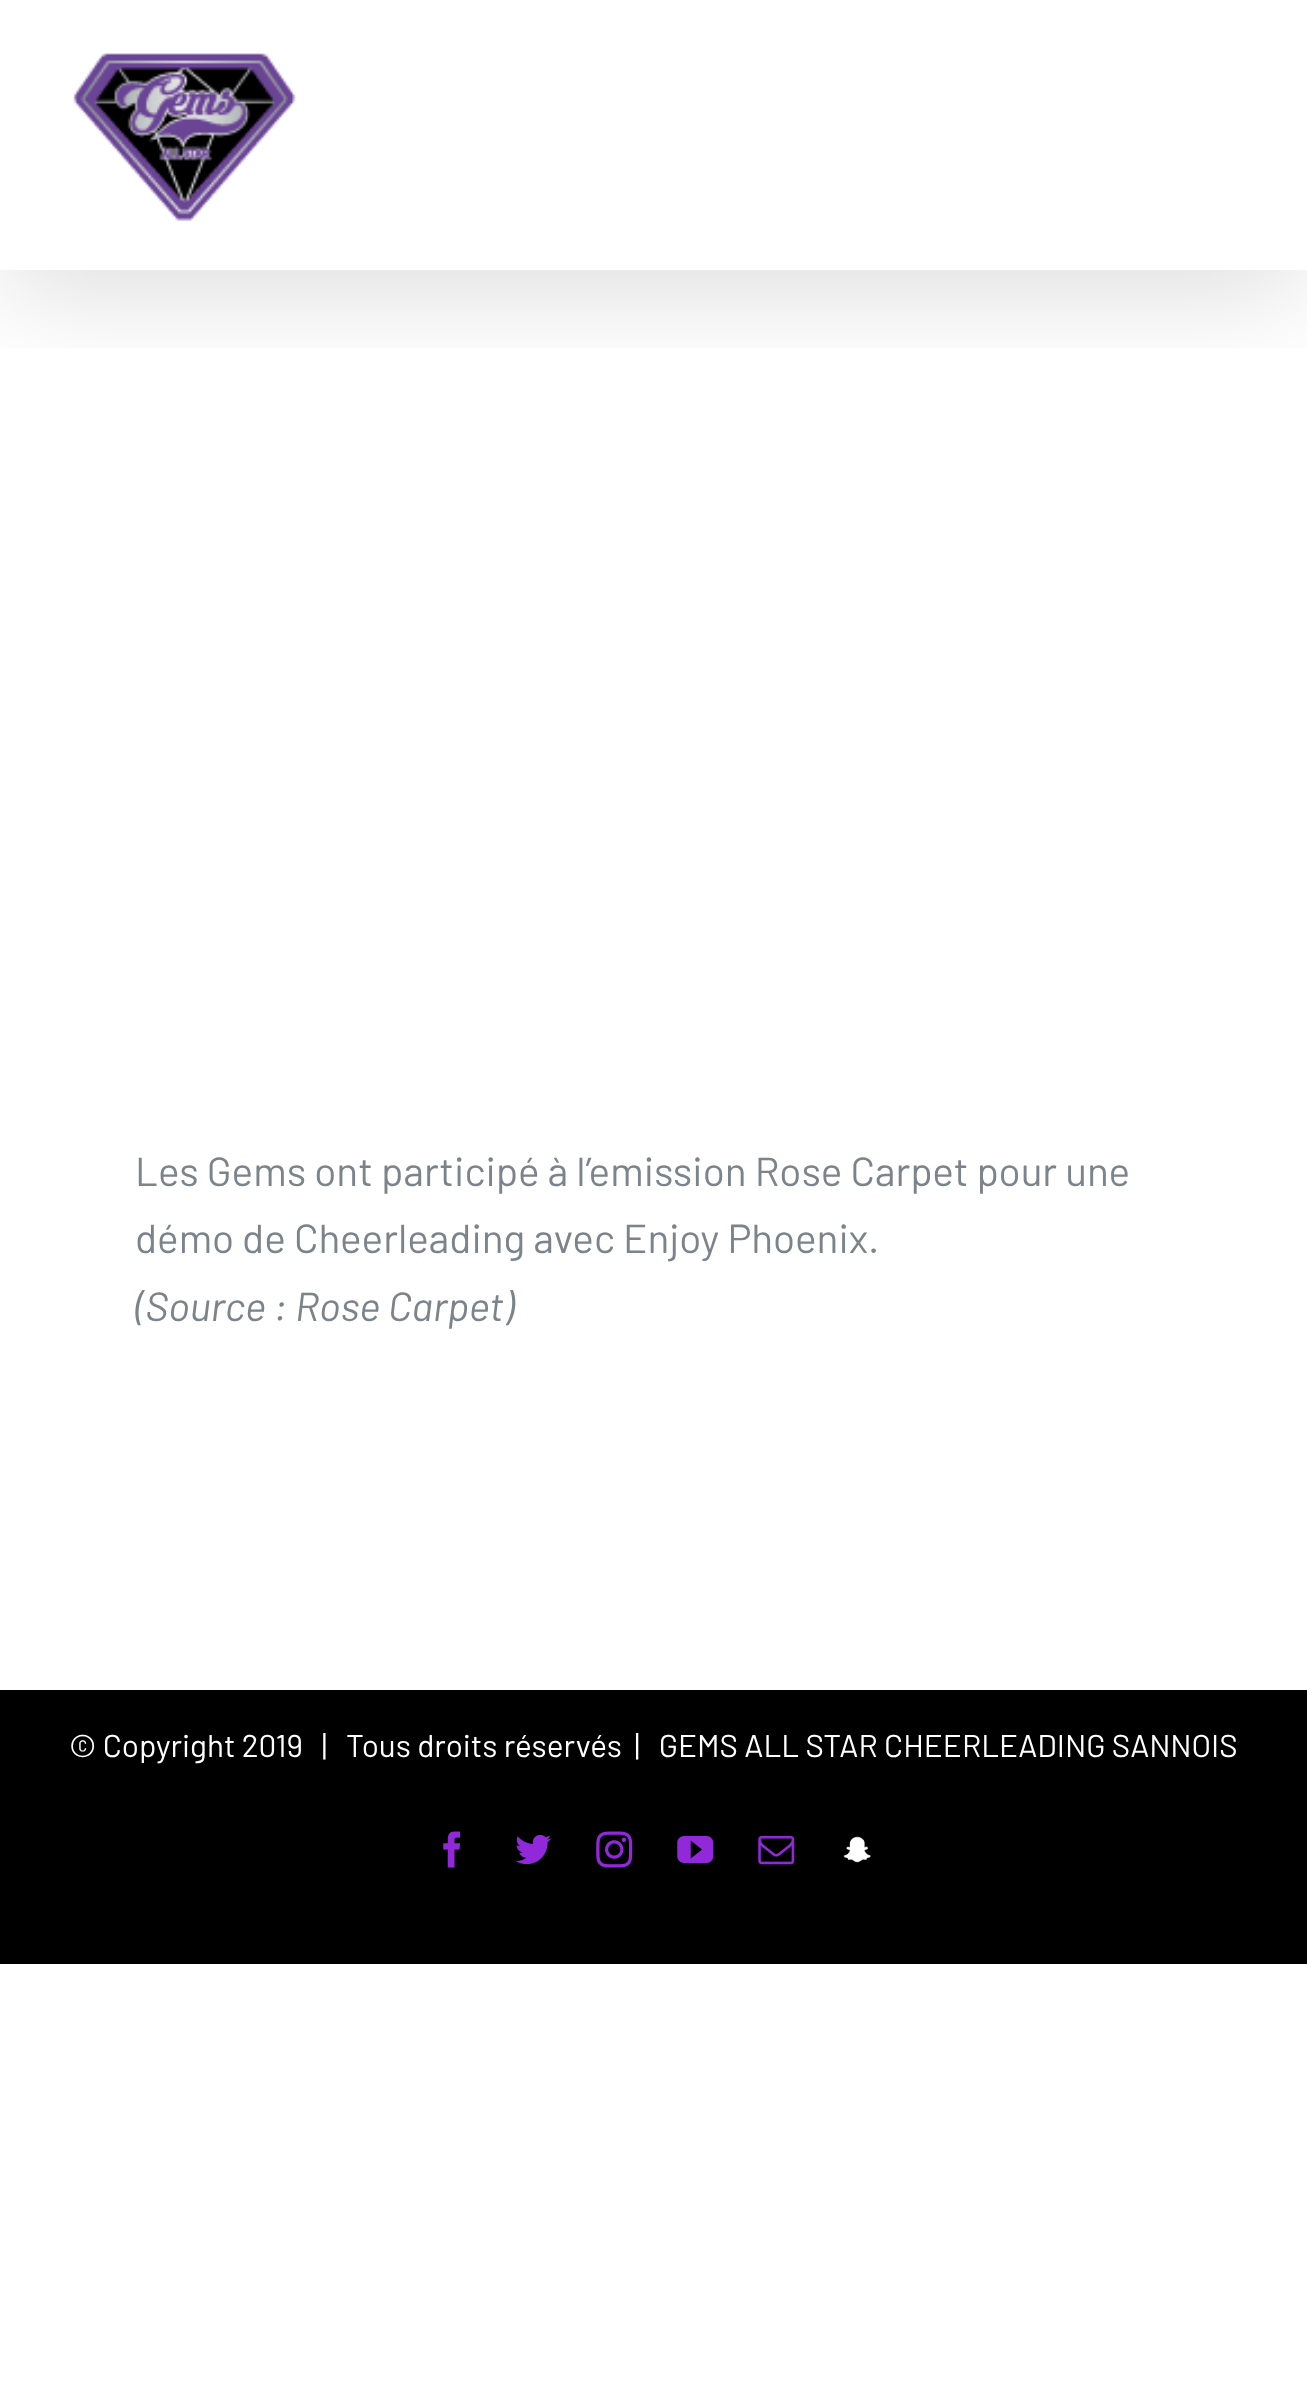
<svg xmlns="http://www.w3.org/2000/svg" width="1307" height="2381">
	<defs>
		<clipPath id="clip1"><rect x="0" y="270" width="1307" height="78" /></clipPath>
	</defs>
	<rect width="100%" height="100%" fill="#FFFFFF" />
	<g clip-path="url(#clip1)">
		<rect x="5" y="27" width="1298" height="261" fill="#000000" fill-opacity="0.14" filter="blur(56px)" />
	</g>
	<image x="73" y="53" width="223" height="169" href="assets/img1.png" />
	<g font-family="Barlow" font-size="40.5" fill="#7B838B">
		<text x="135" y="1186">Les Gems ont participé à l’emission Rose Carpet pour une</text>
		<text x="135" y="1253">démo de Cheerleading avec Enjoy Phoenix.</text>
	</g>
	<text x="135" y="1321" font-family="Barlow" font-size="40.5" font-style="italic" fill="#7B838B">(Source : Rose Carpet)</text>
	<rect x="0" y="1690" width="1307" height="274" fill="#000000" />
	<text x="69" y="1757" font-family="Barlow" font-size="31.5" fill="#FFFFFF" xml:space="preserve">© Copyright 2019   |   Tous droits réservés  |   GEMS ALL STAR CHEERLEADING SANNOIS</text>
	<image x="443" y="1831" width="18" height="37" href="assets/img2.png" />
	<image x="515" y="1834" width="37" height="31" href="assets/img3.png" />
	<image x="596" y="1831" width="37" height="37" href="assets/img4.png" />
	<image x="677" y="1836" width="37" height="27" href="assets/img5.png" />
	<image x="758" y="1836" width="37" height="29" href="assets/img6.png" />
	<image x="843" y="1836" width="28" height="27" href="assets/img7.png" />
</svg>
